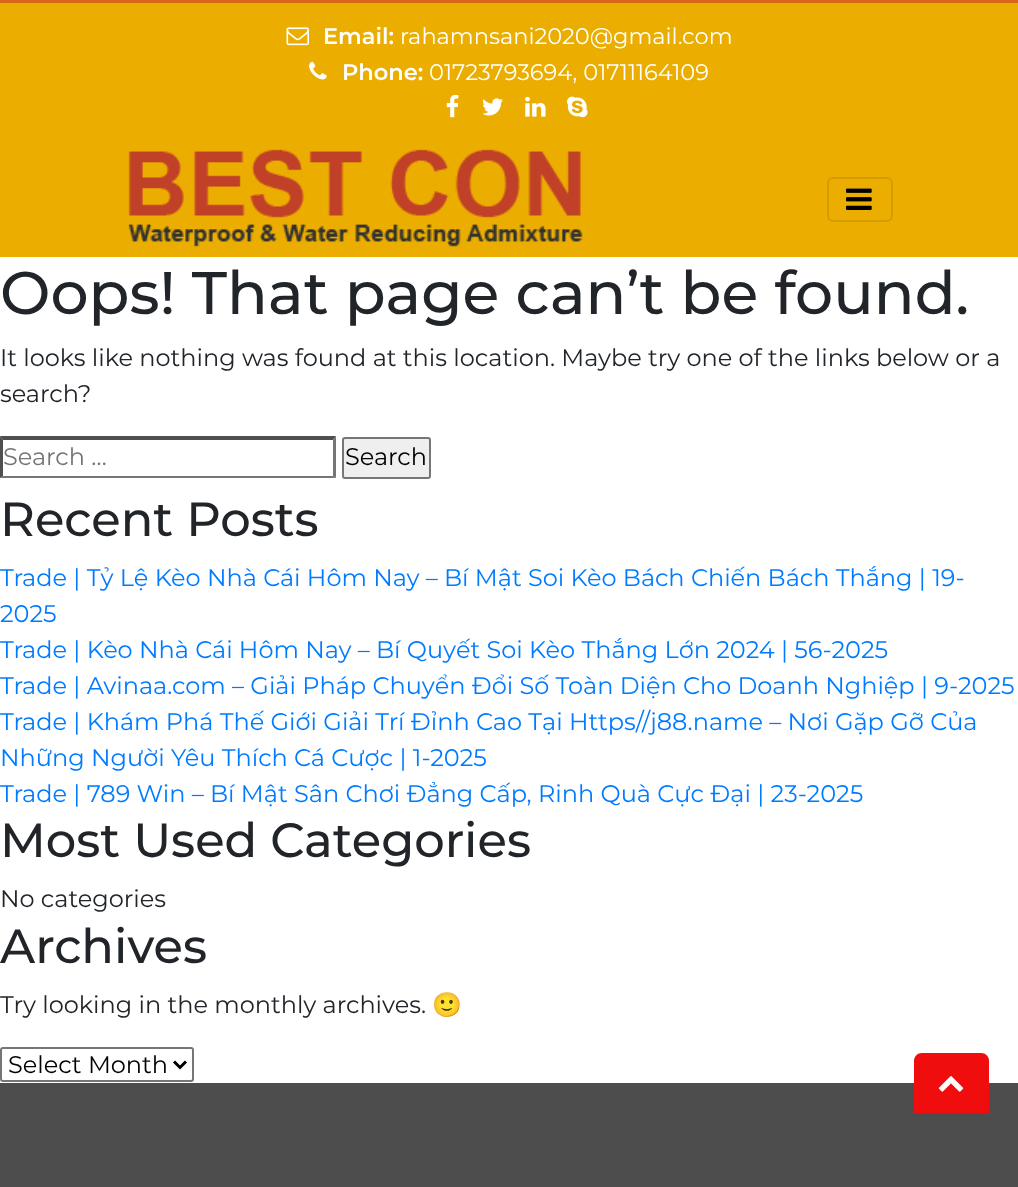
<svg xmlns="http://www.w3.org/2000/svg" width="1018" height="1187">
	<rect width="100%" height="100%" fill="#FFFFFF" />
	<rect x="0" y="3" width="1018" height="254" fill="#EBAD00" />
	<rect x="0" y="0" width="1018" height="3" fill="#D8651A" />
	<image x="286" y="27" width="23" height="19" href="assets/img1.png" />
	<text x="323" y="44" font-family="Montserrat" font-size="22.5" font-weight="600" fill="#FFFFFF">Email:</text>
	<text x="400" y="44" font-family="Montserrat" font-size="22.5" fill="#FFFFFF">rahamnsani2020@gmail.com</text>
	<image x="309" y="61" width="18" height="19" href="assets/img2.png" />
	<text x="342" y="80" font-family="Montserrat" font-size="22.5" font-weight="600" fill="#FFFFFF">Phone:</text>
	<text x="429" y="80" font-family="Montserrat" font-size="22.5" fill="#FFFFFF">01723793694, 01711164109</text>
	<image x="446" y="94" width="13" height="24" href="assets/img3.png" />
	<image x="482" y="98" width="21" height="18" href="assets/img4.png" />
	<image x="525" y="96" width="21" height="21" href="assets/img5.png" />
	<image x="567" y="96" width="21" height="22" href="assets/img6.png" />
	<image x="128" y="149" width="455" height="98" href="assets/img7.png" />
	<rect x="828" y="178" width="64" height="43" rx="5" fill="none" stroke="#D49C00" stroke-width="2" />
	<image x="846" y="188" width="26" height="22" href="assets/img8.png" />
	<text x="0" y="314" font-family="Montserrat" font-size="60" font-weight="500" fill="#212529">Oops! That page can’t be found.</text>
	<g font-family="Montserrat" font-size="24" fill="#212529">
		<text x="0" y="366">It looks like nothing was found at this location. Maybe try one of the links below or a</text>
		<text x="0" y="402">search?</text>
	</g>
	<path d="M0 436H336L333 440H3Z" fill="#4F4F4F" />
	<path d="M336 436V478L333 476V440Z" fill="#767676" />
	<path d="M336 478H0L3 476H333Z" fill="#767676" />
	<path d="M0 478V436L3 440V476Z" fill="#4F4F4F" />
	<text x="3" y="465" font-family="Montserrat" font-size="24" fill="#757575">Search …</text>
	<rect x="343" y="438" width="87" height="40" rx="2" fill="#EFEFEF" stroke="#767676" stroke-width="2" />
	<text x="345" y="465" font-family="Montserrat" font-size="24" fill="#000000">Search</text>
	<text x="0" y="536" font-family="Montserrat" font-size="48" font-weight="500" fill="#212529">Recent Posts</text>
	<g font-family="Montserrat" font-size="24" fill="#007BFF">
		<text x="0" y="586">Trade | Tỷ Lệ Kèo Nhà Cái Hôm Nay – Bí Mật Soi Kèo Bách Chiến Bách Thắng | 19-</text>
		<text x="0" y="622">2025</text>
		<text x="0" y="658">Trade | Kèo Nhà Cái Hôm Nay – Bí Quyết Soi Kèo Thắng Lớn 2024 | 56-2025</text>
		<text x="0" y="694">Trade | Avinaa.com – Giải Pháp Chuyển Đổi Số Toàn Diện Cho Doanh Nghiệp | 9-2025</text>
		<text x="0" y="730">Trade | Khám Phá Thế Giới Giải Trí Đỉnh Cao Tại Https//j88.name – Nơi Gặp Gỡ Của</text>
		<text x="0" y="766">Những Người Yêu Thích Cá Cược | 1-2025</text>
		<text x="0" y="802">Trade | 789 Win – Bí Mật Sân Chơi Đẳng Cấp, Rinh Quà Cực Đại | 23-2025</text>
	</g>
	<text x="0" y="857" font-family="Montserrat" font-size="48" font-weight="500" fill="#212529">Most Used Categories</text>
	<text x="0" y="907" font-family="Montserrat" font-size="24" fill="#212529">No categories</text>
	<text x="0" y="963" font-family="Montserrat" font-size="48" font-weight="500" fill="#212529">Archives</text>
	<text x="0" y="1013" font-family="Montserrat" font-size="24" fill="#212529">Try looking in the monthly archives.</text>
	<text x="432" y="1013" font-family="Noto Color Emoji" font-size="24" fill="#212529">🙂</text>
	<rect x="1" y="1048" width="192" height="33" rx="2" fill="none" stroke="#767676" stroke-width="2" />
	<path d="M174 1061.5L180 1067.5L186 1061.5" fill="none" stroke="#000000" stroke-width="3" />
	<text x="8" y="1073" font-family="Montserrat" font-size="24" fill="#000000">Select Month</text>
	<rect x="0" y="1083" width="1018" height="104" fill="#4D4D4D" />
	<path d="M922 1053H981C985.5 1053 989 1056.5 989 1061V1113H914V1061C914 1056.5 917.5 1053 922 1053Z" fill="#EF0D0D" />
	<image x="938" y="1076" width="26" height="16" href="assets/img9.png" />
</svg>
